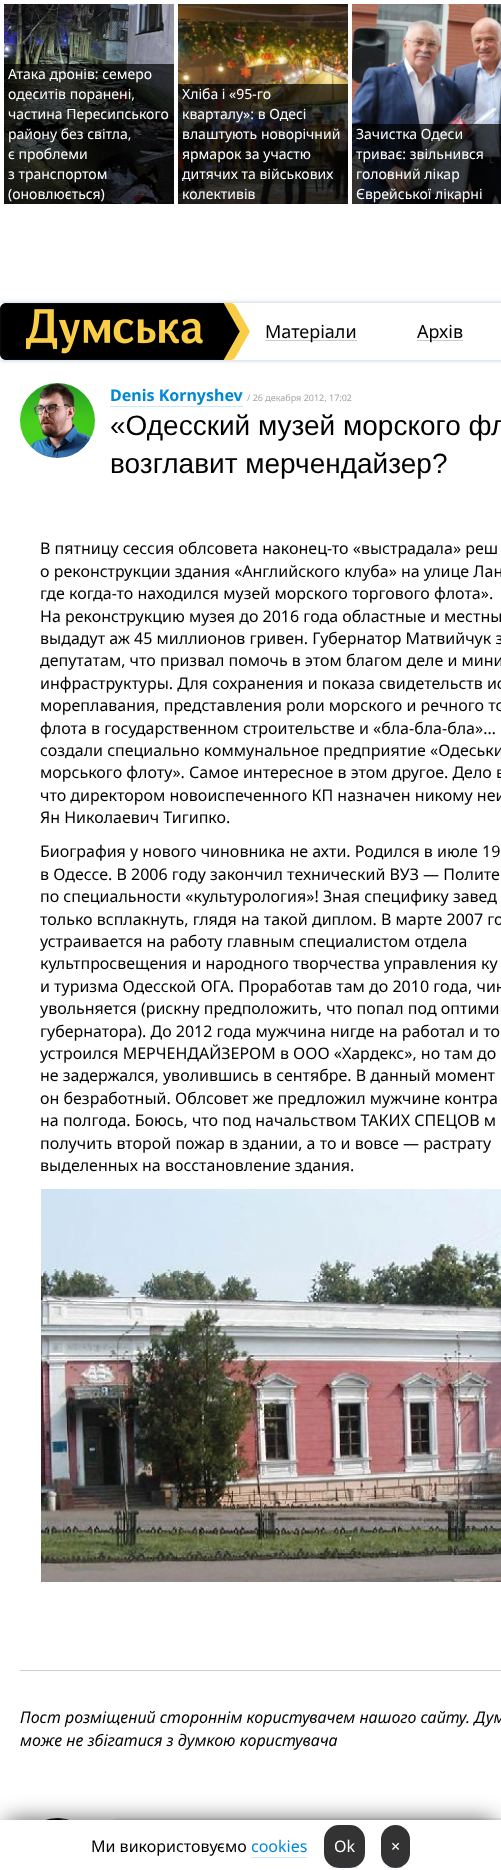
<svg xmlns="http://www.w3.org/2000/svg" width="501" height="1870">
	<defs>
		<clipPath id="clip1"><path d="M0 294H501V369H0ZM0 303H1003V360H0Z" clip-rule="evenodd" /></clipPath>
	</defs>
	<rect width="100%" height="100%" fill="#FFFFFF" />
	<image x="4" y="4" width="170" height="200" href="assets/img1.png" />
	<rect x="4" y="64" width="4" height="140" fill="#000000" fill-opacity="0.7" />
	<rect x="170" y="64" width="4" height="140" fill="#000000" fill-opacity="0.7" />
	<rect x="8" y="64" width="162" height="140" fill="#000000" fill-opacity="0.7" />
	<g font-family="Noto Sans" font-size="14" fill="#FFFFFF">
		<text x="8" y="79">Атака дронів: семеро</text>
		<text x="8" y="99">одеситів поранені,</text>
		<text x="8" y="119">частина Пересипського</text>
		<text x="8" y="139">району без світла,</text>
		<text x="8" y="159">є проблеми</text>
		<text x="8" y="179">з транспортом</text>
		<text x="8" y="199">(оновлюється)</text>
	</g>
	<image x="178" y="4" width="170" height="200" href="assets/img2.png" />
	<rect x="178" y="84" width="4" height="120" fill="#000000" fill-opacity="0.7" />
	<rect x="344" y="84" width="4" height="120" fill="#000000" fill-opacity="0.7" />
	<rect x="182" y="84" width="162" height="120" fill="#000000" fill-opacity="0.7" />
	<g font-family="Noto Sans" font-size="14" fill="#FFFFFF">
		<text x="182" y="99">Хліба і «95-го</text>
		<text x="182" y="119">кварталу»: в Одесі</text>
		<text x="182" y="139">влаштують новорічний</text>
		<text x="182" y="159">ярмарок за участю</text>
		<text x="182" y="179">дитячих та військових</text>
		<text x="182" y="199">колективів</text>
	</g>
	<image x="352" y="4" width="149" height="200" href="assets/img3.png" />
	<rect x="352" y="124" width="4" height="80" fill="#000000" fill-opacity="0.7" />
	<rect x="356" y="124" width="145" height="80" fill="#000000" fill-opacity="0.7" />
	<g font-family="Noto Sans" font-size="14" fill="#FFFFFF">
		<text x="356" y="139">Зачистка Одеси</text>
		<text x="356" y="159">триває: звільнився</text>
		<text x="356" y="179">головний лікар</text>
		<text x="356" y="199">Єврейської лікарні</text>
	</g>
	<g clip-path="url(#clip1)">
		<rect x="0" y="303" width="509" height="57" fill="#004F7A" fill-opacity="0.3" filter="blur(2.5px)" />
	</g>
	<image x="0" y="303" width="250" height="57" href="assets/img4.png" />
	<rect x="265" y="340" width="92" height="1" fill="#CCCCCC" />
	<text x="265" y="338" font-family="Noto Sans" font-size="18" fill="#000000">Матеріали</text>
	<rect x="417" y="340" width="46" height="1" fill="#CCCCCC" />
	<text x="417" y="338" font-family="Noto Sans" font-size="18" fill="#000000">Архів</text>
	<image x="20" y="383" width="75" height="75" href="assets/img5.png" />
	<text x="110" y="401" font-family="Noto Sans" font-size="16" font-weight="700" fill="#0087D6">Denis Kornyshev</text>
	<rect x="110" y="406" width="133" height="1" fill="#CCE7F7" />
	<text x="247" y="401" font-family="Noto Sans" font-size="9" fill="#A5A6A0">/ 26 декабря 2012, 17:02</text>
	<g font-family="Liberation Sans" font-size="28" fill="#000000">
		<text x="110" y="435">«Одесский музей морского фл</text>
		<text x="110" y="473">возглавит мерчендайзер?</text>
	</g>
	<g font-family="Noto Sans" font-size="16" fill="#000000">
		<text x="40" y="554">В пятницу сессия облсовета наконец-то «выстрадала» реш</text>
		<text x="40" y="577">о реконструкции здания «Английского клуба» на улице Лан</text>
		<text x="40" y="599">где когда-то находился музей морского торгового флота».</text>
		<text x="40" y="622">На реконструкцию музея до 2016 года областные и местны</text>
		<text x="40" y="644">выдадут аж 45 миллионов гривен. Губернатор Матвийчук з</text>
		<text x="40" y="666">депутатам, что призвал помочь в этом благом деле и мини</text>
		<text x="40" y="689">инфраструктуры. Для сохранения и показа свидетельств ис</text>
		<text x="40" y="711">мореплавания, представления роли морского и речного то</text>
		<text x="40" y="734">флота в государственном строительстве и «бла-бла-бла»…</text>
		<text x="40" y="756">создали специально коммунальное предприятие «Одеськи</text>
		<text x="40" y="778">морського флоту». Самое интересное в этом другое. Дело в</text>
		<text x="40" y="801">что директором новоиспеченного КП назначен никому неи</text>
		<text x="40" y="823">Ян Николаевич Тигипко.</text>
		<text x="40" y="857">Биография у нового чиновника не ахти. Родился в июле 19</text>
		<text x="40" y="880">в Одессе. В 2006 году закончил технический ВУЗ — Полите</text>
		<text x="40" y="902">по специальности «культурология»! Зная специфику завед</text>
		<text x="40" y="925">только всплакнуть, глядя на такой диплом. В марте 2007 го</text>
		<text x="40" y="947">устраивается на работу главным специалистом отдела</text>
		<text x="40" y="969">культпросвещения и народного творчества управления ку</text>
		<text x="40" y="992">и туризма Одесской ОГА. Проработав там до 2010 года, чин</text>
		<text x="40" y="1014">увольняется (рискну предположить, что попал под оптими</text>
		<text x="40" y="1037">губернатора). До 2012 года мужчина нигде на работал и то</text>
		<text x="40" y="1059">устроился МЕРЧЕНДАЙЗЕРОМ в ООО «Хардекс», но там до</text>
		<text x="40" y="1081">не задержался, уволившись в сентябре. В данный момент</text>
		<text x="40" y="1104">он безработный. Облсовет же предложил мужчине контра</text>
		<text x="40" y="1126">на полгода. Боюсь, что под начальством ТАКИХ СПЕЦОВ м</text>
		<text x="40" y="1149">получить второй пожар в здании, а то и вовсе — растрату</text>
		<text x="40" y="1171">выделенных на восстановление здания.</text>
	</g>
	<image x="41" y="1189" width="460" height="393" href="assets/img6.png" />
	<rect x="20" y="1670" width="481" height="1" fill="#CCCCCC" />
	<g font-family="Noto Sans" font-size="16" font-style="italic" fill="#000000">
		<text x="20" y="1723">Пост розміщений стороннім користувачем нашого сайту. Дум</text>
		<text x="20" y="1746">може не збігатися з думкою користувача</text>
	</g>
	<image x="46" y="1818" width="23" height="2" href="assets/img7.png" />
	<rect x="105" y="1818" width="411" height="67" rx="15" fill="#EEEEEE" />
	<rect x="7" y="1822" width="487" height="36" fill="#000000" fill-opacity="0.75" filter="blur(11.5px)" />
	<rect x="0" y="1820" width="501" height="50" fill="#FFFFFF" />
	<text x="91" y="1852" font-family="Noto Sans" font-size="16" fill="#000000">Ми використовуємо</text>
	<text x="251" y="1852" font-family="Noto Sans" font-size="16" fill="#0087D6">cookies</text>
	<rect x="251" y="1857" width="56" height="1" fill="#CCE7F7" />
	<rect x="324" y="1825" width="41" height="43" rx="15" fill="#333333" />
	<text x="334" y="1852" font-family="Noto Sans" font-size="16" fill="#FFFFFF">Ok</text>
	<rect x="332" y="1867" width="26" height="1" fill="#0087D6" fill-opacity="0.2" />
	<rect x="381" y="1825" width="29" height="43" rx="14.5" fill="#333333" />
	<text x="391" y="1852" font-family="Noto Sans" font-size="16" fill="#FFFFFF">×</text>
	<rect x="388" y="1867" width="15" height="1" fill="#0087D6" fill-opacity="0.2" />
</svg>
